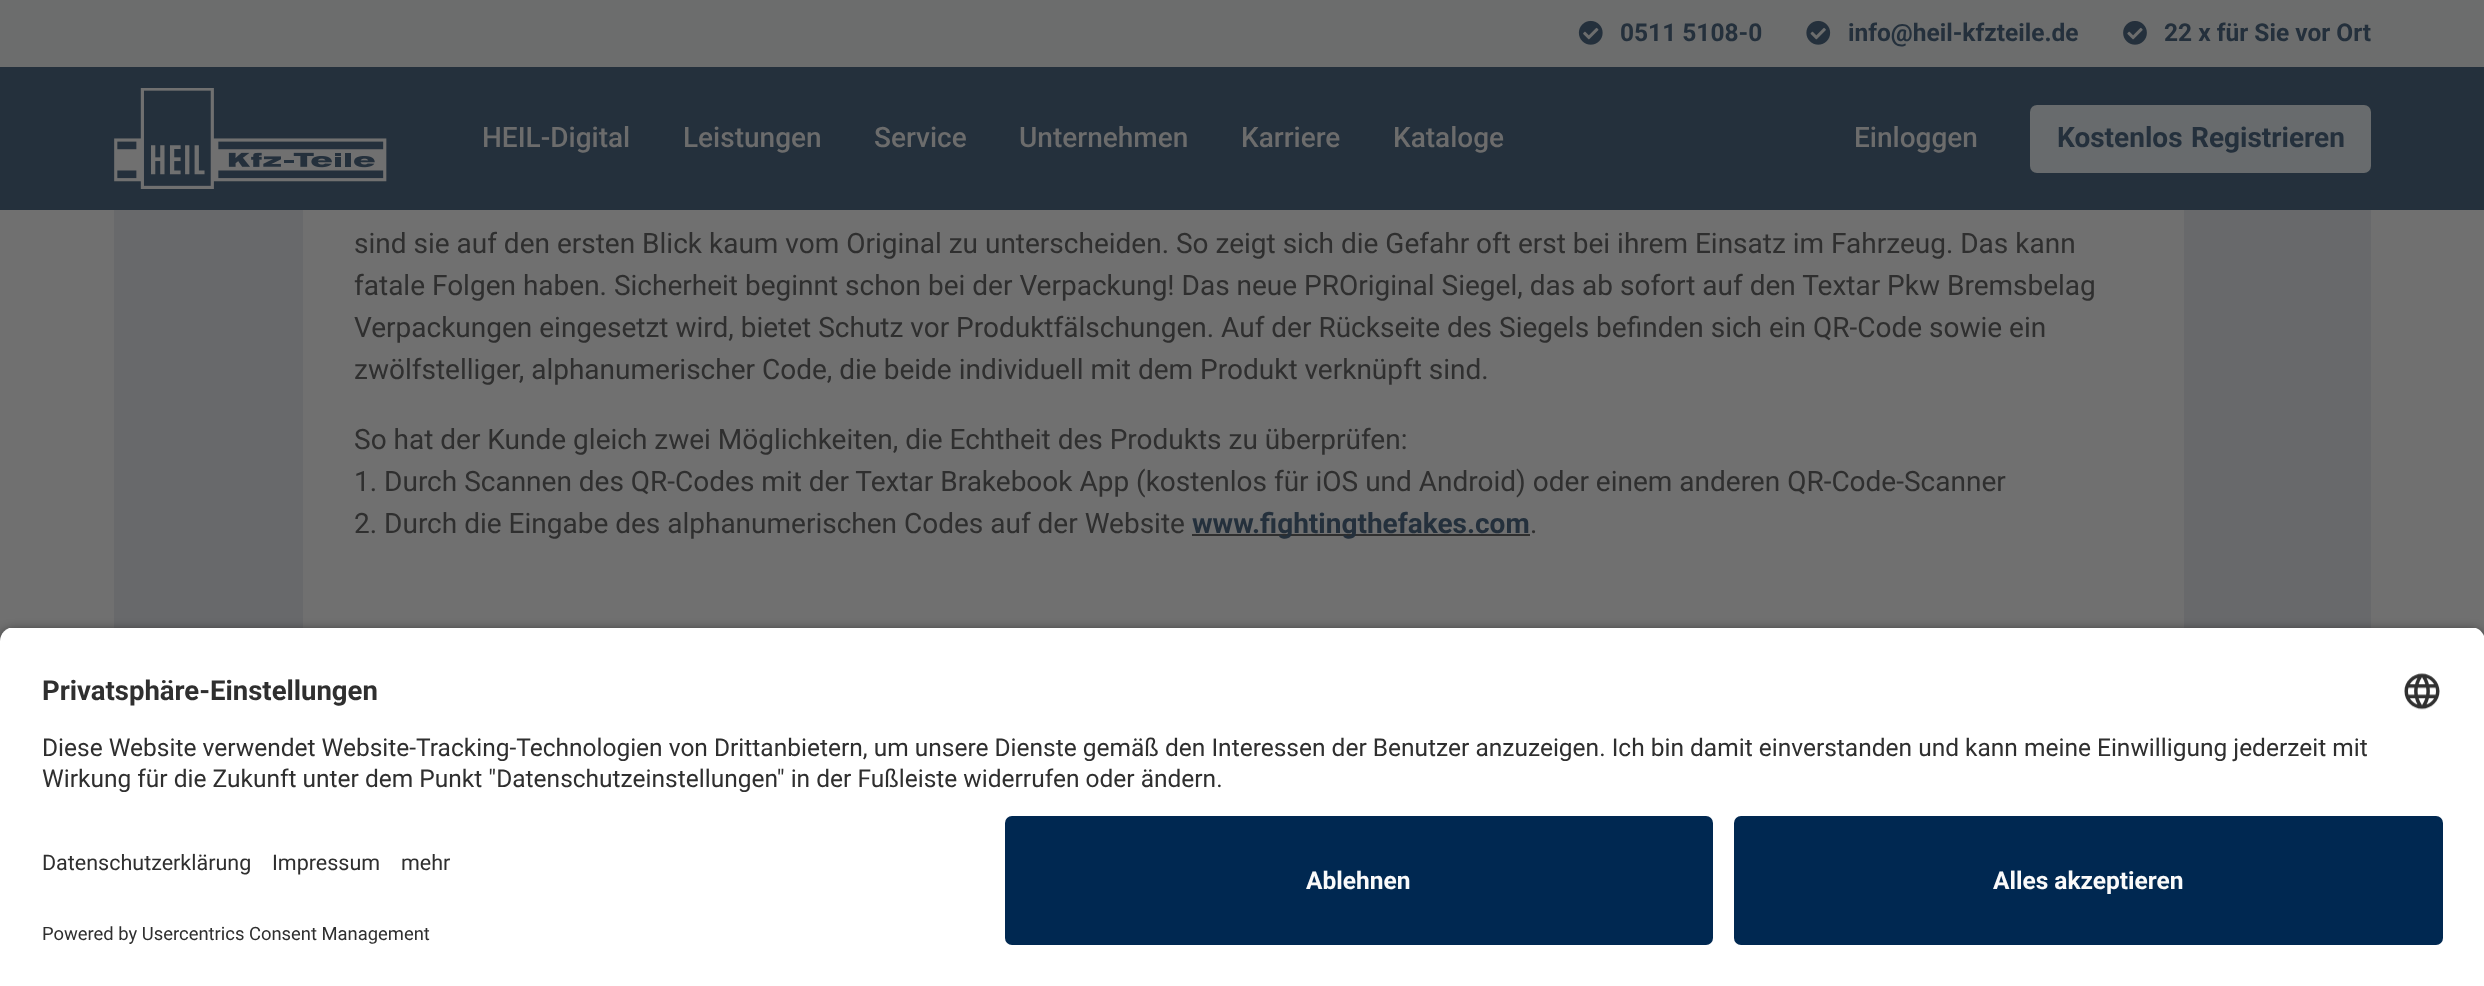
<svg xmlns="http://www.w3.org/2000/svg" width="2484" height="986">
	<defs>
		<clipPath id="clip1"><path d="M14 627H2471C2478.5 627 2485 633.5 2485 641V802H0V641C0 633.5 6.5 627 14 627Z" /></clipPath>
	</defs>
	<rect width="100%" height="100%" fill="#707070" />
	<rect x="0" y="0" width="2484" height="67" fill="#6C6D6D" />
	<image x="1578" y="20" width="25" height="25" href="assets/img1.png" />
	<text x="1620" y="41" font-family="Roboto" font-size="24.5" font-weight="700" fill="#24303C">0511 5108-0</text>
	<image x="1806" y="20" width="25" height="25" href="assets/img2.png" />
	<text x="1848" y="41" font-family="Roboto" font-size="24.5" font-weight="700" fill="#24303C">info@heil-kfzteile.de</text>
	<image x="2123" y="21" width="24" height="24" href="assets/img3.png" />
	<text x="2164" y="41" font-family="Roboto" font-size="24.5" font-weight="700" fill="#24303C">22 x für Sie vor Ort</text>
	<rect x="0" y="67" width="2484" height="143" fill="#24303C" />
	<image x="114" y="88" width="273" height="101" href="assets/img4.png" />
	<g font-family="Roboto" font-size="28" font-weight="500" fill="#6C6C6C">
		<text x="482" y="147">HEIL-Digital</text>
		<text x="683" y="147">Leistungen</text>
		<text x="874" y="147">Service</text>
		<text x="1019" y="147">Unternehmen</text>
		<text x="1241" y="147">Karriere</text>
		<text x="1393" y="147">Kataloge</text>
		<text x="1854" y="147">Einloggen</text>
	</g>
	<rect x="2030" y="105" width="341" height="68" rx="7" fill="#686B6D" />
	<g font-family="Roboto" font-size="28" font-weight="700" fill="#24303C">
		<text x="2057" y="147">Kostenlos</text>
		<text x="2191" y="147">Registrieren</text>
	</g>
	<rect x="114" y="210" width="2257" height="418" fill="#68696B" />
	<rect x="303" y="210" width="1881" height="418" fill="#707070" />
	<g font-family="Roboto" font-size="28" fill="#2F2F2F">
		<text x="354" y="253">sind sie auf den ersten Blick kaum vom Original zu unterscheiden. So zeigt sich die Gefahr oft erst bei ihrem Einsatz im Fahrzeug. Das kann</text>
		<text x="354" y="295">fatale Folgen haben. Sicherheit beginnt schon bei der Verpackung! Das neue PROriginal Siegel, das ab sofort auf den Textar Pkw Bremsbelag</text>
		<text x="354" y="337">Verpackungen eingesetzt wird, bietet Schutz vor Produktfälschungen. Auf der Rückseite des Siegels befinden sich ein QR-Code sowie ein</text>
		<text x="354" y="379">zwölfstelliger, alphanumerischer Code, die beide individuell mit dem Produkt verknüpft sind.</text>
		<text x="354" y="449">So hat der Kunde gleich zwei Möglichkeiten, die Echtheit des Produkts zu überprüfen:</text>
		<text x="354" y="491">1. Durch Scannen des QR-Codes mit der Textar Brakebook App (kostenlos für iOS und Android) oder einem anderen QR-Code-Scanner</text>
		<text x="354" y="533">2. Durch die Eingabe des alphanumerischen Codes auf der Website</text>
	</g>
	<rect x="1192" y="534" width="338" height="2" fill="#2F2F2F" />
	<text x="1192" y="533" font-family="Roboto" font-size="28" font-weight="700" fill="#24303C">www.fightingthefakes.com</text>
	<text x="1530" y="533" font-family="Roboto" font-size="28" fill="#2F2F2F">.</text>
	<rect x="0" y="632" width="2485" height="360" rx="14" fill="#000000" fill-opacity="0.8" filter="blur(6px)" />
	<g clip-path="url(#clip1)">
		<rect x="0" y="628" width="2484" height="174" fill="#FFFFFF" />
	</g>
	<text x="42" y="700" font-family="Roboto" font-size="27.5" font-weight="700" fill="#2F2F2F">Privatsphäre-Einstellungen</text>
	<image x="2404" y="673" width="36" height="37" href="assets/img5.png" />
	<g font-family="Roboto" font-size="24.5" fill="#2F2F2F">
		<text x="42" y="756">Diese Website verwendet Website-Tracking-Technologien von Drittanbietern, um unsere Dienste gemäß den Interessen der Benutzer anzuzeigen. Ich bin damit einverstanden und kann meine Einwilligung jederzeit mit</text>
		<text x="42" y="787">Wirkung für die Zukunft unter dem Punkt "Datenschutzeinstellungen" in der Fußleiste widerrufen oder ändern.</text>
	</g>
	<rect x="0" y="802" width="2484" height="184" fill="#FFFFFF" />
	<g font-family="Roboto" font-size="21.5" fill="#2F2F2F">
		<text x="42" y="870">Datenschutzerklärung</text>
		<text x="272" y="870">Impressum</text>
		<text x="401" y="870">mehr</text>
	</g>
	<text x="42" y="940" font-family="Roboto" font-size="18.4" fill="#2F2F2F">Powered by Usercentrics Consent Management</text>
	<rect x="1005" y="816" width="708" height="129" rx="7" fill="#002851" />
	<text x="1306" y="889" font-family="Roboto" font-size="24.5" font-weight="700" fill="#FAFAFA">Ablehnen</text>
	<rect x="1734" y="816" width="709" height="129" rx="7" fill="#002851" />
	<text x="1993" y="889" font-family="Roboto" font-size="24.5" font-weight="700" fill="#FAFAFA">Alles akzeptieren</text>
</svg>
